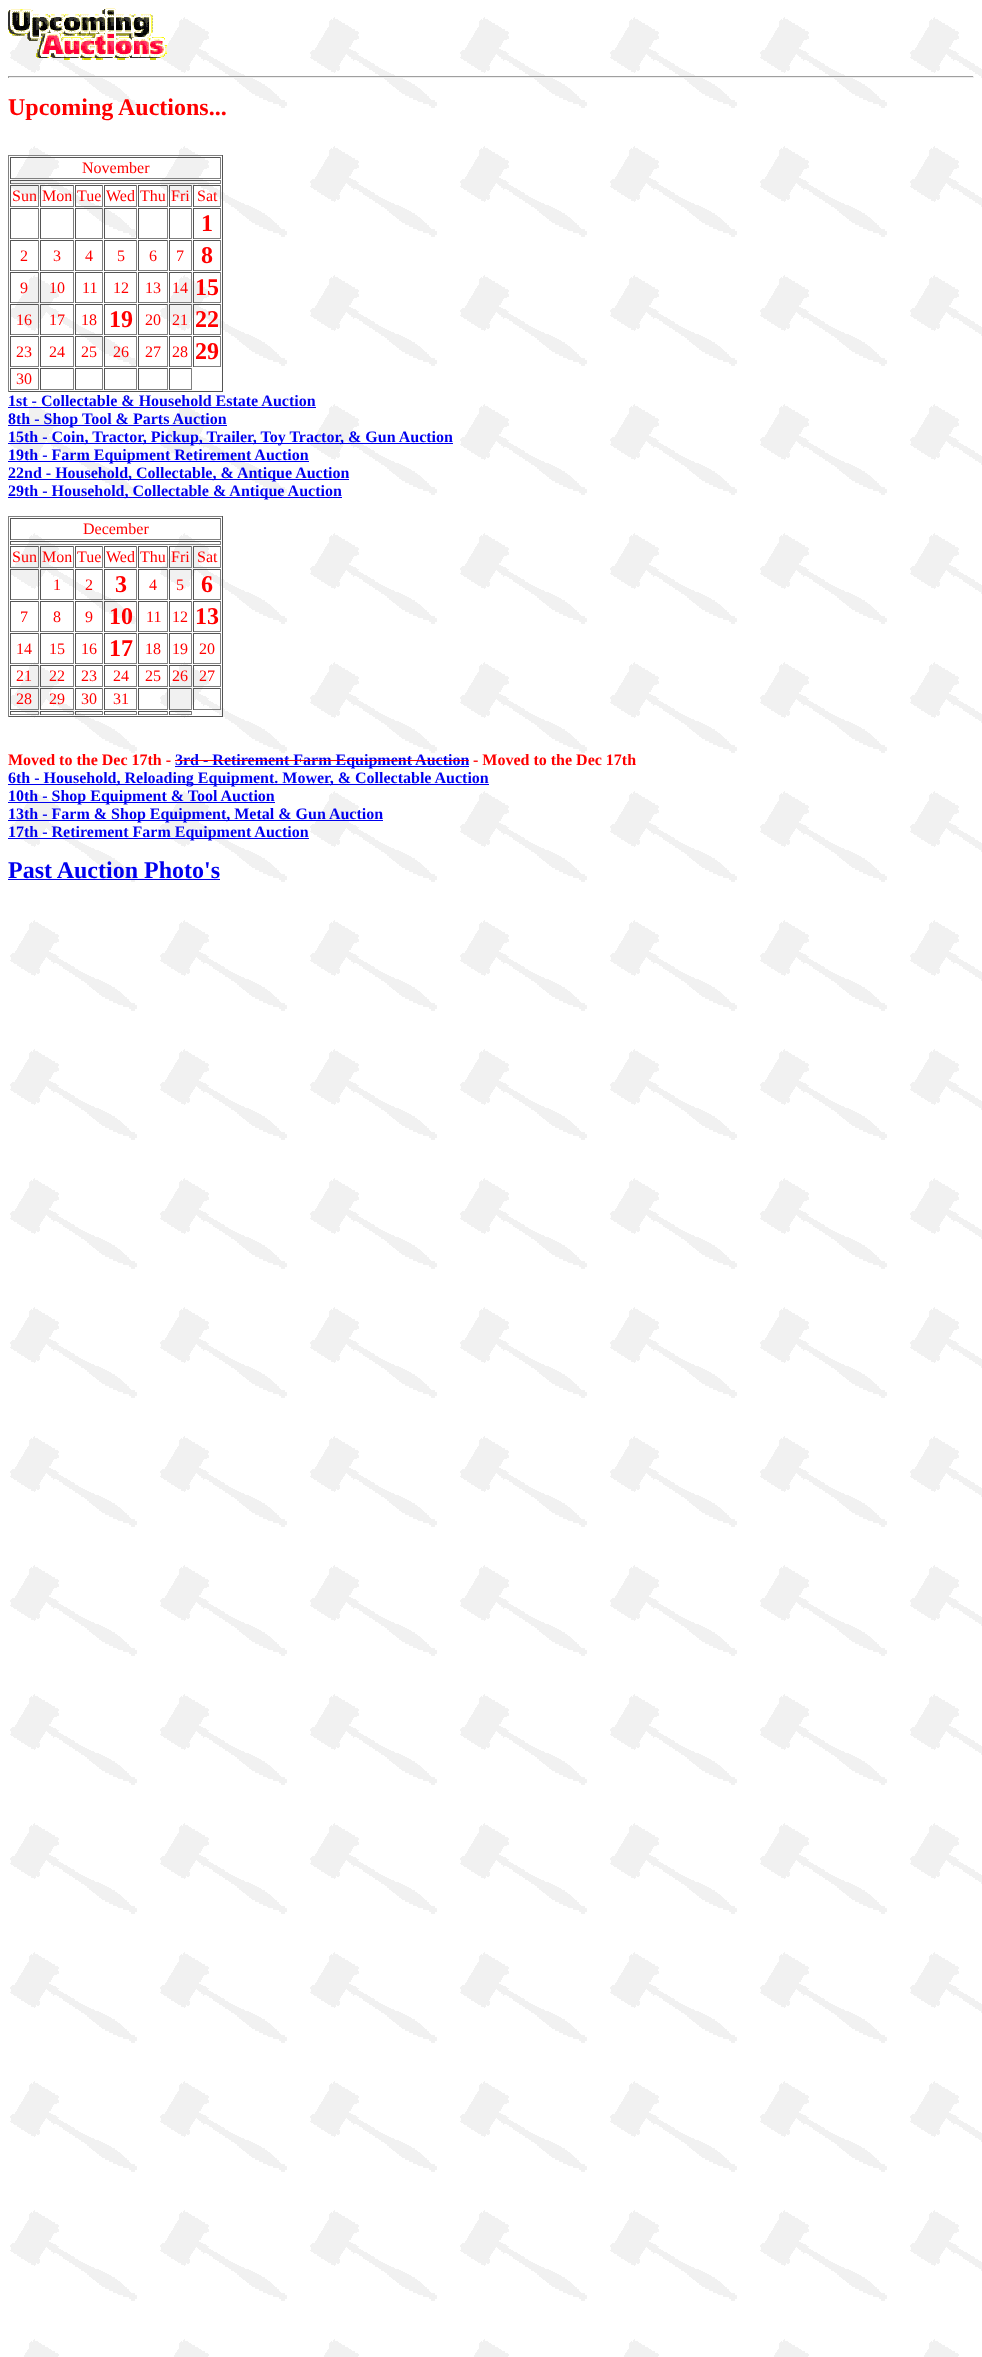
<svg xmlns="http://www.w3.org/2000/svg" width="982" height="2357">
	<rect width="100%" height="100%" fill="#FFFFFF" />
	<image x="10" y="17" width="972" height="2340" href="assets/img1.png" />
	<image x="8" y="8" width="159" height="52" href="assets/img2.png" />
	<rect x="8" y="76" width="966" height="1" fill="#9F9F9F" />
	<rect x="973" y="76" width="1" height="2" fill="#EEEEEE" />
	<rect x="8" y="77" width="966" height="1" fill="#EEEEEE" />
	<rect x="8" y="76" width="1" height="2" fill="#9F9F9F" />
	<text x="8" y="115" font-family="Liberation Serif" font-size="24" font-weight="700" fill="#FF0000">Upcoming Auctions...</text>
	<rect x="8" y="155" width="215" height="1" fill="#808080" />
	<rect x="222" y="155" width="1" height="237" fill="#555555" />
	<rect x="8" y="391" width="215" height="1" fill="#555555" />
	<rect x="8" y="155" width="1" height="237" fill="#808080" />
	<rect x="10" y="157" width="211" height="1" fill="#555555" />
	<rect x="220" y="157" width="1" height="22" fill="#808080" />
	<rect x="10" y="178" width="211" height="1" fill="#808080" />
	<rect x="10" y="157" width="1" height="22" fill="#555555" />
	<text x="82" y="173" font-family="Liberation Serif" font-size="16" fill="#FF0000">November</text>
	<rect x="10" y="180" width="211" height="1" fill="#555555" />
	<rect x="220" y="180" width="1" height="4" fill="#808080" />
	<rect x="10" y="183" width="211" height="1" fill="#808080" />
	<rect x="10" y="180" width="1" height="4" fill="#555555" />
	<rect x="10" y="185" width="29" height="1" fill="#555555" />
	<rect x="38" y="185" width="1" height="22" fill="#808080" />
	<rect x="10" y="206" width="29" height="1" fill="#808080" />
	<rect x="10" y="185" width="1" height="22" fill="#555555" />
	<text x="12" y="201" font-family="Liberation Serif" font-size="16" fill="#FF0000">Sun</text>
	<rect x="40" y="185" width="34" height="1" fill="#555555" />
	<rect x="73" y="185" width="1" height="22" fill="#808080" />
	<rect x="40" y="206" width="34" height="1" fill="#808080" />
	<rect x="40" y="185" width="1" height="22" fill="#555555" />
	<text x="42" y="201" font-family="Liberation Serif" font-size="16" fill="#FF0000">Mon</text>
	<rect x="75" y="185" width="28" height="1" fill="#555555" />
	<rect x="102" y="185" width="1" height="22" fill="#808080" />
	<rect x="75" y="206" width="28" height="1" fill="#808080" />
	<rect x="75" y="185" width="1" height="22" fill="#555555" />
	<text x="77" y="201" font-family="Liberation Serif" font-size="16" fill="#FF0000">Tue</text>
	<rect x="104" y="185" width="33" height="1" fill="#555555" />
	<rect x="136" y="185" width="1" height="22" fill="#808080" />
	<rect x="104" y="206" width="33" height="1" fill="#808080" />
	<rect x="104" y="185" width="1" height="22" fill="#555555" />
	<text x="106" y="201" font-family="Liberation Serif" font-size="16" fill="#FF0000">Wed</text>
	<rect x="138" y="185" width="30" height="1" fill="#555555" />
	<rect x="167" y="185" width="1" height="22" fill="#808080" />
	<rect x="138" y="206" width="30" height="1" fill="#808080" />
	<rect x="138" y="185" width="1" height="22" fill="#555555" />
	<text x="140" y="201" font-family="Liberation Serif" font-size="16" fill="#FF0000">Thu</text>
	<rect x="169" y="185" width="23" height="1" fill="#555555" />
	<rect x="191" y="185" width="1" height="22" fill="#808080" />
	<rect x="169" y="206" width="23" height="1" fill="#808080" />
	<rect x="169" y="185" width="1" height="22" fill="#555555" />
	<text x="171" y="201" font-family="Liberation Serif" font-size="16" fill="#FF0000">Fri</text>
	<rect x="193" y="185" width="28" height="1" fill="#555555" />
	<rect x="220" y="185" width="1" height="22" fill="#808080" />
	<rect x="193" y="206" width="28" height="1" fill="#808080" />
	<rect x="193" y="185" width="1" height="22" fill="#555555" />
	<text x="197" y="201" font-family="Liberation Serif" font-size="16" fill="#FF0000">Sat</text>
	<rect x="10" y="208" width="29" height="1" fill="#555555" />
	<rect x="38" y="208" width="1" height="31" fill="#808080" />
	<rect x="10" y="238" width="29" height="1" fill="#808080" />
	<rect x="10" y="208" width="1" height="31" fill="#555555" />
	<rect x="40" y="208" width="34" height="1" fill="#555555" />
	<rect x="73" y="208" width="1" height="31" fill="#808080" />
	<rect x="40" y="238" width="34" height="1" fill="#808080" />
	<rect x="40" y="208" width="1" height="31" fill="#555555" />
	<rect x="75" y="208" width="28" height="1" fill="#555555" />
	<rect x="102" y="208" width="1" height="31" fill="#808080" />
	<rect x="75" y="238" width="28" height="1" fill="#808080" />
	<rect x="75" y="208" width="1" height="31" fill="#555555" />
	<rect x="104" y="208" width="33" height="1" fill="#555555" />
	<rect x="136" y="208" width="1" height="31" fill="#808080" />
	<rect x="104" y="238" width="33" height="1" fill="#808080" />
	<rect x="104" y="208" width="1" height="31" fill="#555555" />
	<rect x="138" y="208" width="30" height="1" fill="#555555" />
	<rect x="167" y="208" width="1" height="31" fill="#808080" />
	<rect x="138" y="238" width="30" height="1" fill="#808080" />
	<rect x="138" y="208" width="1" height="31" fill="#555555" />
	<rect x="169" y="208" width="23" height="1" fill="#555555" />
	<rect x="191" y="208" width="1" height="31" fill="#808080" />
	<rect x="169" y="238" width="23" height="1" fill="#808080" />
	<rect x="169" y="208" width="1" height="31" fill="#555555" />
	<rect x="193" y="208" width="28" height="1" fill="#555555" />
	<rect x="220" y="208" width="1" height="31" fill="#808080" />
	<rect x="193" y="238" width="28" height="1" fill="#808080" />
	<rect x="193" y="208" width="1" height="31" fill="#555555" />
	<text x="201" y="231" font-family="Liberation Serif" font-size="24" font-weight="700" fill="#FF0000">1</text>
	<rect x="10" y="240" width="29" height="1" fill="#555555" />
	<rect x="38" y="240" width="1" height="31" fill="#808080" />
	<rect x="10" y="270" width="29" height="1" fill="#808080" />
	<rect x="10" y="240" width="1" height="31" fill="#555555" />
	<text x="20" y="261" font-family="Liberation Serif" font-size="16" fill="#FF0000">2</text>
	<rect x="40" y="240" width="34" height="1" fill="#555555" />
	<rect x="73" y="240" width="1" height="31" fill="#808080" />
	<rect x="40" y="270" width="34" height="1" fill="#808080" />
	<rect x="40" y="240" width="1" height="31" fill="#555555" />
	<text x="53" y="261" font-family="Liberation Serif" font-size="16" fill="#FF0000">3</text>
	<rect x="75" y="240" width="28" height="1" fill="#555555" />
	<rect x="102" y="240" width="1" height="31" fill="#808080" />
	<rect x="75" y="270" width="28" height="1" fill="#808080" />
	<rect x="75" y="240" width="1" height="31" fill="#555555" />
	<text x="85" y="261" font-family="Liberation Serif" font-size="16" fill="#FF0000">4</text>
	<rect x="104" y="240" width="33" height="1" fill="#555555" />
	<rect x="136" y="240" width="1" height="31" fill="#808080" />
	<rect x="104" y="270" width="33" height="1" fill="#808080" />
	<rect x="104" y="240" width="1" height="31" fill="#555555" />
	<text x="117" y="261" font-family="Liberation Serif" font-size="16" fill="#FF0000">5</text>
	<rect x="138" y="240" width="30" height="1" fill="#555555" />
	<rect x="167" y="240" width="1" height="31" fill="#808080" />
	<rect x="138" y="270" width="30" height="1" fill="#808080" />
	<rect x="138" y="240" width="1" height="31" fill="#555555" />
	<text x="149" y="261" font-family="Liberation Serif" font-size="16" fill="#FF0000">6</text>
	<rect x="169" y="240" width="23" height="1" fill="#555555" />
	<rect x="191" y="240" width="1" height="31" fill="#808080" />
	<rect x="169" y="270" width="23" height="1" fill="#808080" />
	<rect x="169" y="240" width="1" height="31" fill="#555555" />
	<text x="176" y="261" font-family="Liberation Serif" font-size="16" fill="#FF0000">7</text>
	<rect x="193" y="240" width="28" height="1" fill="#555555" />
	<rect x="220" y="240" width="1" height="31" fill="#808080" />
	<rect x="193" y="270" width="28" height="1" fill="#808080" />
	<rect x="193" y="240" width="1" height="31" fill="#555555" />
	<text x="201" y="263" font-family="Liberation Serif" font-size="24" font-weight="700" fill="#FF0000">8</text>
	<rect x="10" y="272" width="29" height="1" fill="#555555" />
	<rect x="38" y="272" width="1" height="31" fill="#808080" />
	<rect x="10" y="302" width="29" height="1" fill="#808080" />
	<rect x="10" y="272" width="1" height="31" fill="#555555" />
	<text x="20" y="293" font-family="Liberation Serif" font-size="16" fill="#FF0000">9</text>
	<rect x="40" y="272" width="34" height="1" fill="#555555" />
	<rect x="73" y="272" width="1" height="31" fill="#808080" />
	<rect x="40" y="302" width="34" height="1" fill="#808080" />
	<rect x="40" y="272" width="1" height="31" fill="#555555" />
	<text x="49" y="293" font-family="Liberation Serif" font-size="16" fill="#FF0000">10</text>
	<rect x="75" y="272" width="28" height="1" fill="#555555" />
	<rect x="102" y="272" width="1" height="31" fill="#808080" />
	<rect x="75" y="302" width="28" height="1" fill="#808080" />
	<rect x="75" y="272" width="1" height="31" fill="#555555" />
	<text x="82" y="293" font-family="Liberation Serif" font-size="16" fill="#FF0000">11</text>
	<rect x="104" y="272" width="33" height="1" fill="#555555" />
	<rect x="136" y="272" width="1" height="31" fill="#808080" />
	<rect x="104" y="302" width="33" height="1" fill="#808080" />
	<rect x="104" y="272" width="1" height="31" fill="#555555" />
	<text x="113" y="293" font-family="Liberation Serif" font-size="16" fill="#FF0000">12</text>
	<rect x="138" y="272" width="30" height="1" fill="#555555" />
	<rect x="167" y="272" width="1" height="31" fill="#808080" />
	<rect x="138" y="302" width="30" height="1" fill="#808080" />
	<rect x="138" y="272" width="1" height="31" fill="#555555" />
	<text x="145" y="293" font-family="Liberation Serif" font-size="16" fill="#FF0000">13</text>
	<rect x="169" y="272" width="23" height="1" fill="#555555" />
	<rect x="191" y="272" width="1" height="31" fill="#808080" />
	<rect x="169" y="302" width="23" height="1" fill="#808080" />
	<rect x="169" y="272" width="1" height="31" fill="#555555" />
	<text x="172" y="293" font-family="Liberation Serif" font-size="16" fill="#FF0000">14</text>
	<rect x="193" y="272" width="28" height="1" fill="#555555" />
	<rect x="220" y="272" width="1" height="31" fill="#808080" />
	<rect x="193" y="302" width="28" height="1" fill="#808080" />
	<rect x="193" y="272" width="1" height="31" fill="#555555" />
	<text x="195" y="295" font-family="Liberation Serif" font-size="24" font-weight="700" fill="#FF0000">15</text>
	<rect x="10" y="304" width="29" height="1" fill="#555555" />
	<rect x="38" y="304" width="1" height="31" fill="#808080" />
	<rect x="10" y="334" width="29" height="1" fill="#808080" />
	<rect x="10" y="304" width="1" height="31" fill="#555555" />
	<text x="16" y="325" font-family="Liberation Serif" font-size="16" fill="#FF0000">16</text>
	<rect x="40" y="304" width="34" height="1" fill="#555555" />
	<rect x="73" y="304" width="1" height="31" fill="#808080" />
	<rect x="40" y="334" width="34" height="1" fill="#808080" />
	<rect x="40" y="304" width="1" height="31" fill="#555555" />
	<text x="49" y="325" font-family="Liberation Serif" font-size="16" fill="#FF0000">17</text>
	<rect x="75" y="304" width="28" height="1" fill="#555555" />
	<rect x="102" y="304" width="1" height="31" fill="#808080" />
	<rect x="75" y="334" width="28" height="1" fill="#808080" />
	<rect x="75" y="304" width="1" height="31" fill="#555555" />
	<text x="81" y="325" font-family="Liberation Serif" font-size="16" fill="#FF0000">18</text>
	<rect x="104" y="304" width="33" height="1" fill="#555555" />
	<rect x="136" y="304" width="1" height="31" fill="#808080" />
	<rect x="104" y="334" width="33" height="1" fill="#808080" />
	<rect x="104" y="304" width="1" height="31" fill="#555555" />
	<text x="109" y="327" font-family="Liberation Serif" font-size="24" font-weight="700" fill="#FF0000">19</text>
	<rect x="138" y="304" width="30" height="1" fill="#555555" />
	<rect x="167" y="304" width="1" height="31" fill="#808080" />
	<rect x="138" y="334" width="30" height="1" fill="#808080" />
	<rect x="138" y="304" width="1" height="31" fill="#555555" />
	<text x="145" y="325" font-family="Liberation Serif" font-size="16" fill="#FF0000">20</text>
	<rect x="169" y="304" width="23" height="1" fill="#555555" />
	<rect x="191" y="304" width="1" height="31" fill="#808080" />
	<rect x="169" y="334" width="23" height="1" fill="#808080" />
	<rect x="169" y="304" width="1" height="31" fill="#555555" />
	<text x="172" y="325" font-family="Liberation Serif" font-size="16" fill="#FF0000">21</text>
	<rect x="193" y="304" width="28" height="1" fill="#555555" />
	<rect x="220" y="304" width="1" height="31" fill="#808080" />
	<rect x="193" y="334" width="28" height="1" fill="#808080" />
	<rect x="193" y="304" width="1" height="31" fill="#555555" />
	<text x="195" y="327" font-family="Liberation Serif" font-size="24" font-weight="700" fill="#FF0000">22</text>
	<rect x="10" y="336" width="29" height="1" fill="#555555" />
	<rect x="38" y="336" width="1" height="31" fill="#808080" />
	<rect x="10" y="366" width="29" height="1" fill="#808080" />
	<rect x="10" y="336" width="1" height="31" fill="#555555" />
	<text x="16" y="357" font-family="Liberation Serif" font-size="16" fill="#FF0000">23</text>
	<rect x="40" y="336" width="34" height="1" fill="#555555" />
	<rect x="73" y="336" width="1" height="31" fill="#808080" />
	<rect x="40" y="366" width="34" height="1" fill="#808080" />
	<rect x="40" y="336" width="1" height="31" fill="#555555" />
	<text x="49" y="357" font-family="Liberation Serif" font-size="16" fill="#FF0000">24</text>
	<rect x="75" y="336" width="28" height="1" fill="#555555" />
	<rect x="102" y="336" width="1" height="31" fill="#808080" />
	<rect x="75" y="366" width="28" height="1" fill="#808080" />
	<rect x="75" y="336" width="1" height="31" fill="#555555" />
	<text x="81" y="357" font-family="Liberation Serif" font-size="16" fill="#FF0000">25</text>
	<rect x="104" y="336" width="33" height="1" fill="#555555" />
	<rect x="136" y="336" width="1" height="31" fill="#808080" />
	<rect x="104" y="366" width="33" height="1" fill="#808080" />
	<rect x="104" y="336" width="1" height="31" fill="#555555" />
	<text x="113" y="357" font-family="Liberation Serif" font-size="16" fill="#FF0000">26</text>
	<rect x="138" y="336" width="30" height="1" fill="#555555" />
	<rect x="167" y="336" width="1" height="31" fill="#808080" />
	<rect x="138" y="366" width="30" height="1" fill="#808080" />
	<rect x="138" y="336" width="1" height="31" fill="#555555" />
	<text x="145" y="357" font-family="Liberation Serif" font-size="16" fill="#FF0000">27</text>
	<rect x="169" y="336" width="23" height="1" fill="#555555" />
	<rect x="191" y="336" width="1" height="31" fill="#808080" />
	<rect x="169" y="366" width="23" height="1" fill="#808080" />
	<rect x="169" y="336" width="1" height="31" fill="#555555" />
	<text x="172" y="357" font-family="Liberation Serif" font-size="16" fill="#FF0000">28</text>
	<rect x="193" y="336" width="28" height="1" fill="#555555" />
	<rect x="220" y="336" width="1" height="31" fill="#808080" />
	<rect x="193" y="366" width="28" height="1" fill="#808080" />
	<rect x="193" y="336" width="1" height="31" fill="#555555" />
	<text x="195" y="359" font-family="Liberation Serif" font-size="24" font-weight="700" fill="#FF0000">29</text>
	<rect x="10" y="368" width="29" height="1" fill="#555555" />
	<rect x="38" y="368" width="1" height="22" fill="#808080" />
	<rect x="10" y="389" width="29" height="1" fill="#808080" />
	<rect x="10" y="368" width="1" height="22" fill="#555555" />
	<text x="16" y="384" font-family="Liberation Serif" font-size="16" fill="#FF0000">30</text>
	<rect x="40" y="368" width="34" height="1" fill="#555555" />
	<rect x="73" y="368" width="1" height="22" fill="#808080" />
	<rect x="40" y="389" width="34" height="1" fill="#808080" />
	<rect x="40" y="368" width="1" height="22" fill="#555555" />
	<rect x="75" y="368" width="28" height="1" fill="#555555" />
	<rect x="102" y="368" width="1" height="22" fill="#808080" />
	<rect x="75" y="389" width="28" height="1" fill="#808080" />
	<rect x="75" y="368" width="1" height="22" fill="#555555" />
	<rect x="104" y="368" width="33" height="1" fill="#555555" />
	<rect x="136" y="368" width="1" height="22" fill="#808080" />
	<rect x="104" y="389" width="33" height="1" fill="#808080" />
	<rect x="104" y="368" width="1" height="22" fill="#555555" />
	<rect x="138" y="368" width="30" height="1" fill="#555555" />
	<rect x="167" y="368" width="1" height="22" fill="#808080" />
	<rect x="138" y="389" width="30" height="1" fill="#808080" />
	<rect x="138" y="368" width="1" height="22" fill="#555555" />
	<rect x="169" y="368" width="23" height="1" fill="#555555" />
	<rect x="191" y="368" width="1" height="22" fill="#808080" />
	<rect x="169" y="389" width="23" height="1" fill="#808080" />
	<rect x="169" y="368" width="1" height="22" fill="#555555" />
	<text x="8" y="406" font-family="Liberation Serif" font-size="16" font-weight="700" fill="#0000EE">1st - Collectable &amp; Household Estate Auction</text>
	<rect x="8" y="407" width="308" height="1" fill="#0000EE" />
	<rect x="8" y="425" width="219" height="1" fill="#0000EE" />
	<text x="8" y="424" font-family="Liberation Serif" font-size="16" font-weight="700" fill="#0000EE">8th - Shop Tool &amp; Parts Auction</text>
	<rect x="8" y="443" width="445" height="1" fill="#0000EE" />
	<text x="8" y="442" font-family="Liberation Serif" font-size="16" font-weight="700" fill="#0000EE">15th - Coin, Tractor, Pickup, Trailer, Toy Tractor, &amp; Gun Auction</text>
	<rect x="8" y="461" width="301" height="1" fill="#0000EE" />
	<text x="8" y="460" font-family="Liberation Serif" font-size="16" font-weight="700" fill="#0000EE">19th - Farm Equipment Retirement Auction</text>
	<rect x="8" y="479" width="341" height="1" fill="#0000EE" />
	<text x="8" y="478" font-family="Liberation Serif" font-size="16" font-weight="700" fill="#0000EE">22nd - Household, Collectable, &amp; Antique Auction</text>
	<rect x="8" y="497" width="334" height="1" fill="#0000EE" />
	<text x="8" y="496" font-family="Liberation Serif" font-size="16" font-weight="700" fill="#0000EE">29th - Household, Collectable &amp; Antique Auction</text>
	<rect x="8" y="516" width="215" height="1" fill="#808080" />
	<rect x="222" y="516" width="1" height="201" fill="#555555" />
	<rect x="8" y="716" width="215" height="1" fill="#555555" />
	<rect x="8" y="516" width="1" height="201" fill="#808080" />
	<rect x="10" y="518" width="211" height="1" fill="#555555" />
	<rect x="220" y="518" width="1" height="22" fill="#808080" />
	<rect x="10" y="539" width="211" height="1" fill="#808080" />
	<rect x="10" y="518" width="1" height="22" fill="#555555" />
	<text x="83" y="534" font-family="Liberation Serif" font-size="16" fill="#FF0000">December</text>
	<rect x="10" y="541" width="211" height="1" fill="#555555" />
	<rect x="220" y="541" width="1" height="4" fill="#808080" />
	<rect x="10" y="544" width="211" height="1" fill="#808080" />
	<rect x="10" y="541" width="1" height="4" fill="#555555" />
	<rect x="10" y="546" width="29" height="1" fill="#555555" />
	<rect x="38" y="546" width="1" height="22" fill="#808080" />
	<rect x="10" y="567" width="29" height="1" fill="#808080" />
	<rect x="10" y="546" width="1" height="22" fill="#555555" />
	<text x="12" y="562" font-family="Liberation Serif" font-size="16" fill="#FF0000">Sun</text>
	<rect x="40" y="546" width="34" height="1" fill="#555555" />
	<rect x="73" y="546" width="1" height="22" fill="#808080" />
	<rect x="40" y="567" width="34" height="1" fill="#808080" />
	<rect x="40" y="546" width="1" height="22" fill="#555555" />
	<text x="42" y="562" font-family="Liberation Serif" font-size="16" fill="#FF0000">Mon</text>
	<rect x="75" y="546" width="28" height="1" fill="#555555" />
	<rect x="102" y="546" width="1" height="22" fill="#808080" />
	<rect x="75" y="567" width="28" height="1" fill="#808080" />
	<rect x="75" y="546" width="1" height="22" fill="#555555" />
	<text x="77" y="562" font-family="Liberation Serif" font-size="16" fill="#FF0000">Tue</text>
	<rect x="104" y="546" width="33" height="1" fill="#555555" />
	<rect x="136" y="546" width="1" height="22" fill="#808080" />
	<rect x="104" y="567" width="33" height="1" fill="#808080" />
	<rect x="104" y="546" width="1" height="22" fill="#555555" />
	<text x="106" y="562" font-family="Liberation Serif" font-size="16" fill="#FF0000">Wed</text>
	<rect x="138" y="546" width="30" height="1" fill="#555555" />
	<rect x="167" y="546" width="1" height="22" fill="#808080" />
	<rect x="138" y="567" width="30" height="1" fill="#808080" />
	<rect x="138" y="546" width="1" height="22" fill="#555555" />
	<text x="140" y="562" font-family="Liberation Serif" font-size="16" fill="#FF0000">Thu</text>
	<rect x="169" y="546" width="23" height="1" fill="#555555" />
	<rect x="191" y="546" width="1" height="22" fill="#808080" />
	<rect x="169" y="567" width="23" height="1" fill="#808080" />
	<rect x="169" y="546" width="1" height="22" fill="#555555" />
	<text x="171" y="562" font-family="Liberation Serif" font-size="16" fill="#FF0000">Fri</text>
	<rect x="193" y="546" width="28" height="1" fill="#555555" />
	<rect x="220" y="546" width="1" height="22" fill="#808080" />
	<rect x="193" y="567" width="28" height="1" fill="#808080" />
	<rect x="193" y="546" width="1" height="22" fill="#555555" />
	<text x="197" y="562" font-family="Liberation Serif" font-size="16" fill="#FF0000">Sat</text>
	<rect x="10" y="569" width="29" height="1" fill="#555555" />
	<rect x="38" y="569" width="1" height="31" fill="#808080" />
	<rect x="10" y="599" width="29" height="1" fill="#808080" />
	<rect x="10" y="569" width="1" height="31" fill="#555555" />
	<rect x="40" y="569" width="34" height="1" fill="#555555" />
	<rect x="73" y="569" width="1" height="31" fill="#808080" />
	<rect x="40" y="599" width="34" height="1" fill="#808080" />
	<rect x="40" y="569" width="1" height="31" fill="#555555" />
	<text x="53" y="590" font-family="Liberation Serif" font-size="16" fill="#FF0000">1</text>
	<rect x="75" y="569" width="28" height="1" fill="#555555" />
	<rect x="102" y="569" width="1" height="31" fill="#808080" />
	<rect x="75" y="599" width="28" height="1" fill="#808080" />
	<rect x="75" y="569" width="1" height="31" fill="#555555" />
	<text x="85" y="590" font-family="Liberation Serif" font-size="16" fill="#FF0000">2</text>
	<rect x="104" y="569" width="33" height="1" fill="#555555" />
	<rect x="136" y="569" width="1" height="31" fill="#808080" />
	<rect x="104" y="599" width="33" height="1" fill="#808080" />
	<rect x="104" y="569" width="1" height="31" fill="#555555" />
	<text x="115" y="592" font-family="Liberation Serif" font-size="24" font-weight="700" fill="#FF0000">3</text>
	<rect x="138" y="569" width="30" height="1" fill="#555555" />
	<rect x="167" y="569" width="1" height="31" fill="#808080" />
	<rect x="138" y="599" width="30" height="1" fill="#808080" />
	<rect x="138" y="569" width="1" height="31" fill="#555555" />
	<text x="149" y="590" font-family="Liberation Serif" font-size="16" fill="#FF0000">4</text>
	<rect x="169" y="569" width="23" height="1" fill="#555555" />
	<rect x="191" y="569" width="1" height="31" fill="#808080" />
	<rect x="169" y="599" width="23" height="1" fill="#808080" />
	<rect x="169" y="569" width="1" height="31" fill="#555555" />
	<text x="176" y="590" font-family="Liberation Serif" font-size="16" fill="#FF0000">5</text>
	<rect x="193" y="569" width="28" height="1" fill="#555555" />
	<rect x="220" y="569" width="1" height="31" fill="#808080" />
	<rect x="193" y="599" width="28" height="1" fill="#808080" />
	<rect x="193" y="569" width="1" height="31" fill="#555555" />
	<text x="201" y="592" font-family="Liberation Serif" font-size="24" font-weight="700" fill="#FF0000">6</text>
	<rect x="10" y="601" width="29" height="1" fill="#555555" />
	<rect x="38" y="601" width="1" height="31" fill="#808080" />
	<rect x="10" y="631" width="29" height="1" fill="#808080" />
	<rect x="10" y="601" width="1" height="31" fill="#555555" />
	<text x="20" y="622" font-family="Liberation Serif" font-size="16" fill="#FF0000">7</text>
	<rect x="40" y="601" width="34" height="1" fill="#555555" />
	<rect x="73" y="601" width="1" height="31" fill="#808080" />
	<rect x="40" y="631" width="34" height="1" fill="#808080" />
	<rect x="40" y="601" width="1" height="31" fill="#555555" />
	<text x="53" y="622" font-family="Liberation Serif" font-size="16" fill="#FF0000">8</text>
	<rect x="75" y="601" width="28" height="1" fill="#555555" />
	<rect x="102" y="601" width="1" height="31" fill="#808080" />
	<rect x="75" y="631" width="28" height="1" fill="#808080" />
	<rect x="75" y="601" width="1" height="31" fill="#555555" />
	<text x="85" y="622" font-family="Liberation Serif" font-size="16" fill="#FF0000">9</text>
	<rect x="104" y="601" width="33" height="1" fill="#555555" />
	<rect x="136" y="601" width="1" height="31" fill="#808080" />
	<rect x="104" y="631" width="33" height="1" fill="#808080" />
	<rect x="104" y="601" width="1" height="31" fill="#555555" />
	<text x="109" y="624" font-family="Liberation Serif" font-size="24" font-weight="700" fill="#FF0000">10</text>
	<rect x="138" y="601" width="30" height="1" fill="#555555" />
	<rect x="167" y="601" width="1" height="31" fill="#808080" />
	<rect x="138" y="631" width="30" height="1" fill="#808080" />
	<rect x="138" y="601" width="1" height="31" fill="#555555" />
	<text x="146" y="622" font-family="Liberation Serif" font-size="16" fill="#FF0000">11</text>
	<rect x="169" y="601" width="23" height="1" fill="#555555" />
	<rect x="191" y="601" width="1" height="31" fill="#808080" />
	<rect x="169" y="631" width="23" height="1" fill="#808080" />
	<rect x="169" y="601" width="1" height="31" fill="#555555" />
	<text x="172" y="622" font-family="Liberation Serif" font-size="16" fill="#FF0000">12</text>
	<rect x="193" y="601" width="28" height="1" fill="#555555" />
	<rect x="220" y="601" width="1" height="31" fill="#808080" />
	<rect x="193" y="631" width="28" height="1" fill="#808080" />
	<rect x="193" y="601" width="1" height="31" fill="#555555" />
	<text x="195" y="624" font-family="Liberation Serif" font-size="24" font-weight="700" fill="#FF0000">13</text>
	<rect x="10" y="633" width="29" height="1" fill="#555555" />
	<rect x="38" y="633" width="1" height="31" fill="#808080" />
	<rect x="10" y="663" width="29" height="1" fill="#808080" />
	<rect x="10" y="633" width="1" height="31" fill="#555555" />
	<text x="16" y="654" font-family="Liberation Serif" font-size="16" fill="#FF0000">14</text>
	<rect x="40" y="633" width="34" height="1" fill="#555555" />
	<rect x="73" y="633" width="1" height="31" fill="#808080" />
	<rect x="40" y="663" width="34" height="1" fill="#808080" />
	<rect x="40" y="633" width="1" height="31" fill="#555555" />
	<text x="49" y="654" font-family="Liberation Serif" font-size="16" fill="#FF0000">15</text>
	<rect x="75" y="633" width="28" height="1" fill="#555555" />
	<rect x="102" y="633" width="1" height="31" fill="#808080" />
	<rect x="75" y="663" width="28" height="1" fill="#808080" />
	<rect x="75" y="633" width="1" height="31" fill="#555555" />
	<text x="81" y="654" font-family="Liberation Serif" font-size="16" fill="#FF0000">16</text>
	<rect x="104" y="633" width="33" height="1" fill="#555555" />
	<rect x="136" y="633" width="1" height="31" fill="#808080" />
	<rect x="104" y="663" width="33" height="1" fill="#808080" />
	<rect x="104" y="633" width="1" height="31" fill="#555555" />
	<text x="109" y="656" font-family="Liberation Serif" font-size="24" font-weight="700" fill="#FF0000">17</text>
	<rect x="138" y="633" width="30" height="1" fill="#555555" />
	<rect x="167" y="633" width="1" height="31" fill="#808080" />
	<rect x="138" y="663" width="30" height="1" fill="#808080" />
	<rect x="138" y="633" width="1" height="31" fill="#555555" />
	<text x="145" y="654" font-family="Liberation Serif" font-size="16" fill="#FF0000">18</text>
	<rect x="169" y="633" width="23" height="1" fill="#555555" />
	<rect x="191" y="633" width="1" height="31" fill="#808080" />
	<rect x="169" y="663" width="23" height="1" fill="#808080" />
	<rect x="169" y="633" width="1" height="31" fill="#555555" />
	<text x="172" y="654" font-family="Liberation Serif" font-size="16" fill="#FF0000">19</text>
	<rect x="193" y="633" width="28" height="1" fill="#555555" />
	<rect x="220" y="633" width="1" height="31" fill="#808080" />
	<rect x="193" y="663" width="28" height="1" fill="#808080" />
	<rect x="193" y="633" width="1" height="31" fill="#555555" />
	<text x="199" y="654" font-family="Liberation Serif" font-size="16" fill="#FF0000">20</text>
	<rect x="10" y="665" width="29" height="1" fill="#555555" />
	<rect x="38" y="665" width="1" height="22" fill="#808080" />
	<rect x="10" y="686" width="29" height="1" fill="#808080" />
	<rect x="10" y="665" width="1" height="22" fill="#555555" />
	<text x="16" y="681" font-family="Liberation Serif" font-size="16" fill="#FF0000">21</text>
	<rect x="40" y="665" width="34" height="1" fill="#555555" />
	<rect x="73" y="665" width="1" height="22" fill="#808080" />
	<rect x="40" y="686" width="34" height="1" fill="#808080" />
	<rect x="40" y="665" width="1" height="22" fill="#555555" />
	<text x="49" y="681" font-family="Liberation Serif" font-size="16" fill="#FF0000">22</text>
	<rect x="75" y="665" width="28" height="1" fill="#555555" />
	<rect x="102" y="665" width="1" height="22" fill="#808080" />
	<rect x="75" y="686" width="28" height="1" fill="#808080" />
	<rect x="75" y="665" width="1" height="22" fill="#555555" />
	<text x="81" y="681" font-family="Liberation Serif" font-size="16" fill="#FF0000">23</text>
	<rect x="104" y="665" width="33" height="1" fill="#555555" />
	<rect x="136" y="665" width="1" height="22" fill="#808080" />
	<rect x="104" y="686" width="33" height="1" fill="#808080" />
	<rect x="104" y="665" width="1" height="22" fill="#555555" />
	<text x="113" y="681" font-family="Liberation Serif" font-size="16" fill="#FF0000">24</text>
	<rect x="138" y="665" width="30" height="1" fill="#555555" />
	<rect x="167" y="665" width="1" height="22" fill="#808080" />
	<rect x="138" y="686" width="30" height="1" fill="#808080" />
	<rect x="138" y="665" width="1" height="22" fill="#555555" />
	<text x="145" y="681" font-family="Liberation Serif" font-size="16" fill="#FF0000">25</text>
	<rect x="169" y="665" width="23" height="1" fill="#555555" />
	<rect x="191" y="665" width="1" height="22" fill="#808080" />
	<rect x="169" y="686" width="23" height="1" fill="#808080" />
	<rect x="169" y="665" width="1" height="22" fill="#555555" />
	<text x="172" y="681" font-family="Liberation Serif" font-size="16" fill="#FF0000">26</text>
	<rect x="193" y="665" width="28" height="1" fill="#555555" />
	<rect x="220" y="665" width="1" height="22" fill="#808080" />
	<rect x="193" y="686" width="28" height="1" fill="#808080" />
	<rect x="193" y="665" width="1" height="22" fill="#555555" />
	<text x="199" y="681" font-family="Liberation Serif" font-size="16" fill="#FF0000">27</text>
	<rect x="10" y="688" width="29" height="1" fill="#555555" />
	<rect x="38" y="688" width="1" height="22" fill="#808080" />
	<rect x="10" y="709" width="29" height="1" fill="#808080" />
	<rect x="10" y="688" width="1" height="22" fill="#555555" />
	<text x="16" y="704" font-family="Liberation Serif" font-size="16" fill="#FF0000">28</text>
	<rect x="40" y="688" width="34" height="1" fill="#555555" />
	<rect x="73" y="688" width="1" height="22" fill="#808080" />
	<rect x="40" y="709" width="34" height="1" fill="#808080" />
	<rect x="40" y="688" width="1" height="22" fill="#555555" />
	<text x="49" y="704" font-family="Liberation Serif" font-size="16" fill="#FF0000">29</text>
	<rect x="75" y="688" width="28" height="1" fill="#555555" />
	<rect x="102" y="688" width="1" height="22" fill="#808080" />
	<rect x="75" y="709" width="28" height="1" fill="#808080" />
	<rect x="75" y="688" width="1" height="22" fill="#555555" />
	<text x="81" y="704" font-family="Liberation Serif" font-size="16" fill="#FF0000">30</text>
	<rect x="104" y="688" width="33" height="1" fill="#555555" />
	<rect x="136" y="688" width="1" height="22" fill="#808080" />
	<rect x="104" y="709" width="33" height="1" fill="#808080" />
	<rect x="104" y="688" width="1" height="22" fill="#555555" />
	<text x="113" y="704" font-family="Liberation Serif" font-size="16" fill="#FF0000">31</text>
	<rect x="138" y="688" width="30" height="1" fill="#555555" />
	<rect x="167" y="688" width="1" height="22" fill="#808080" />
	<rect x="138" y="709" width="30" height="1" fill="#808080" />
	<rect x="138" y="688" width="1" height="22" fill="#555555" />
	<rect x="169" y="688" width="23" height="1" fill="#555555" />
	<rect x="191" y="688" width="1" height="22" fill="#808080" />
	<rect x="169" y="709" width="23" height="1" fill="#808080" />
	<rect x="169" y="688" width="1" height="22" fill="#555555" />
	<rect x="193" y="688" width="28" height="1" fill="#555555" />
	<rect x="220" y="688" width="1" height="22" fill="#808080" />
	<rect x="193" y="709" width="28" height="1" fill="#808080" />
	<rect x="193" y="688" width="1" height="22" fill="#555555" />
	<rect x="10" y="711" width="29" height="1" fill="#555555" />
	<rect x="38" y="711" width="1" height="4" fill="#808080" />
	<rect x="10" y="714" width="29" height="1" fill="#808080" />
	<rect x="10" y="711" width="1" height="4" fill="#555555" />
	<rect x="40" y="711" width="34" height="1" fill="#555555" />
	<rect x="73" y="711" width="1" height="4" fill="#808080" />
	<rect x="40" y="714" width="34" height="1" fill="#808080" />
	<rect x="40" y="711" width="1" height="4" fill="#555555" />
	<rect x="75" y="711" width="28" height="1" fill="#555555" />
	<rect x="102" y="711" width="1" height="4" fill="#808080" />
	<rect x="75" y="714" width="28" height="1" fill="#808080" />
	<rect x="75" y="711" width="1" height="4" fill="#555555" />
	<rect x="104" y="711" width="33" height="1" fill="#555555" />
	<rect x="136" y="711" width="1" height="4" fill="#808080" />
	<rect x="104" y="714" width="33" height="1" fill="#808080" />
	<rect x="104" y="711" width="1" height="4" fill="#555555" />
	<rect x="138" y="711" width="30" height="1" fill="#555555" />
	<rect x="167" y="711" width="1" height="4" fill="#808080" />
	<rect x="138" y="714" width="30" height="1" fill="#808080" />
	<rect x="138" y="711" width="1" height="4" fill="#555555" />
	<rect x="169" y="711" width="23" height="1" fill="#555555" />
	<rect x="191" y="711" width="1" height="4" fill="#808080" />
	<rect x="169" y="714" width="23" height="1" fill="#808080" />
	<rect x="169" y="711" width="1" height="4" fill="#555555" />
	<text x="8" y="765" font-family="Liberation Serif" font-size="16" font-weight="700" fill="#FF0000">Moved to the Dec 17th -</text>
	<rect x="175" y="766" width="294" height="1" fill="#0000EE" />
	<text x="175" y="765" font-family="Liberation Serif" font-size="16" font-weight="700" fill="#0000EE">3rd - Retirement Farm Equipment Auction</text>
	<rect x="175" y="760" width="294" height="1" fill="#FF0000" />
	<text x="473" y="765" font-family="Liberation Serif" font-size="16" font-weight="700" fill="#FF0000">- Moved to the Dec 17th</text>
	<rect x="8" y="784" width="481" height="1" fill="#0000EE" />
	<text x="8" y="783" font-family="Liberation Serif" font-size="16" font-weight="700" fill="#0000EE">6th - Household, Reloading Equipment. Mower, &amp; Collectable Auction</text>
	<rect x="8" y="802" width="267" height="1" fill="#0000EE" />
	<text x="8" y="801" font-family="Liberation Serif" font-size="16" font-weight="700" fill="#0000EE">10th - Shop Equipment &amp; Tool Auction</text>
	<rect x="8" y="820" width="375" height="1" fill="#0000EE" />
	<text x="8" y="819" font-family="Liberation Serif" font-size="16" font-weight="700" fill="#0000EE">13th - Farm &amp; Shop Equipment, Metal &amp; Gun Auction</text>
	<rect x="8" y="838" width="301" height="1" fill="#0000EE" />
	<text x="8" y="837" font-family="Liberation Serif" font-size="16" font-weight="700" fill="#0000EE">17th - Retirement Farm Equipment Auction</text>
	<text x="8" y="878" font-family="Liberation Serif" font-size="24" font-weight="700" fill="#0000EE">Past Auction Photo's</text>
	<rect x="8" y="879" width="212" height="1" fill="#0000EE" />
</svg>
